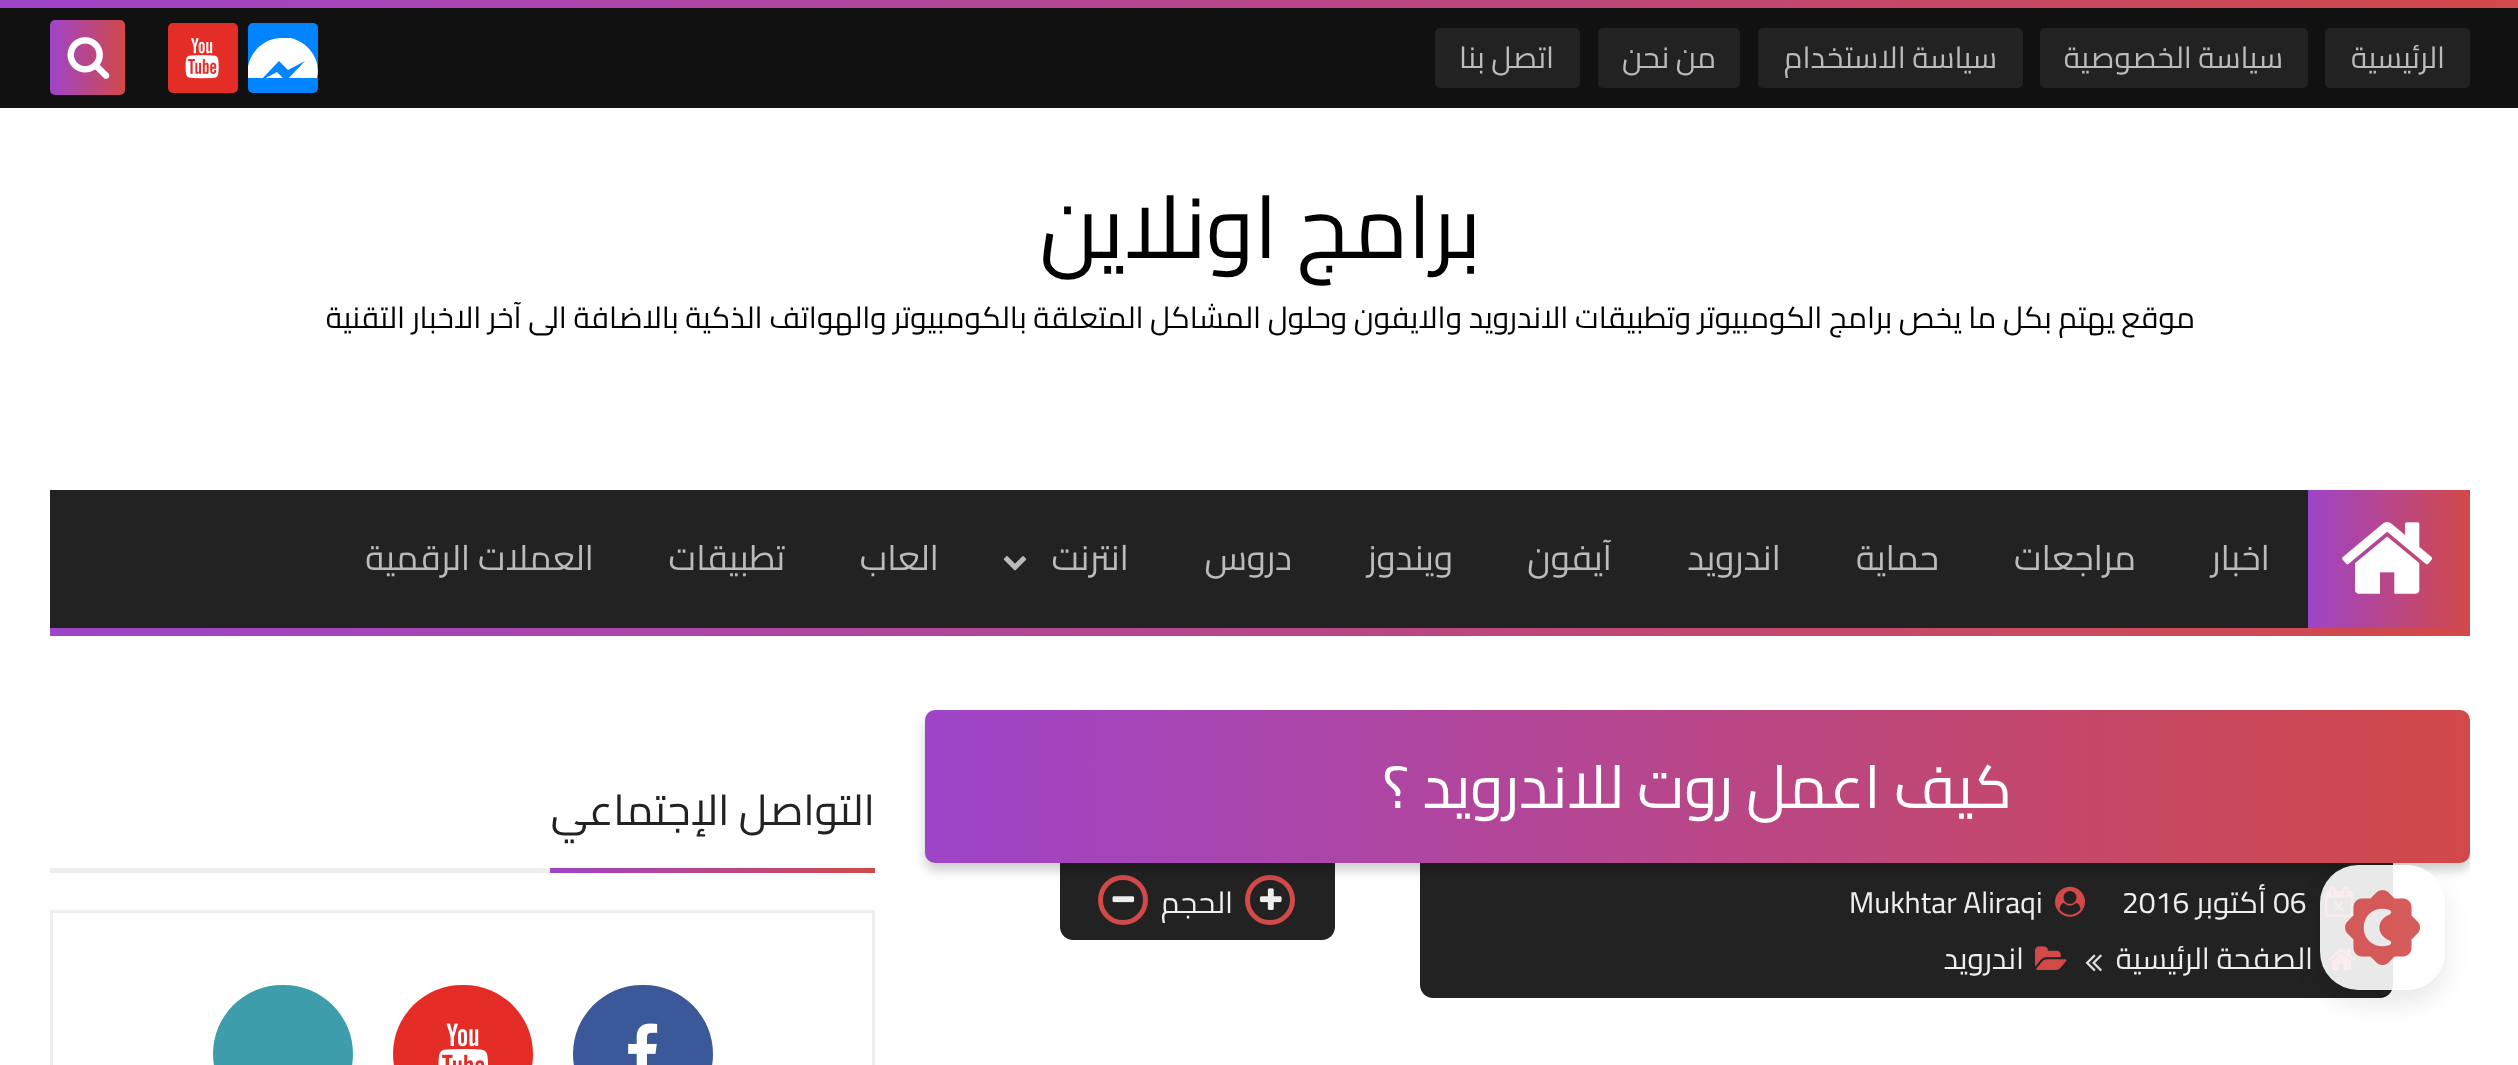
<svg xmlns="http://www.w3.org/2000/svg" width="2518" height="1065">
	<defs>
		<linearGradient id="g1" gradientUnits="userSpaceOnUse" x1="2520" y1="3.8" x2="0" y2="3.7"><stop offset="0" stop-color="#D24949" /><stop offset="1" stop-color="#9E44C9" /></linearGradient>
		<clipPath id="clip1"><rect x="248" y="38" width="70" height="40" /></clipPath>
		<linearGradient id="g2" gradientUnits="userSpaceOnUse" x1="125" y1="58" x2="50" y2="58"><stop offset="0" stop-color="#D24949" /><stop offset="1" stop-color="#9E44C9" /></linearGradient>
		<linearGradient id="g3" gradientUnits="userSpaceOnUse" x1="2470" y1="559" x2="2308" y2="559"><stop offset="0" stop-color="#D24949" /><stop offset="1" stop-color="#9E44C9" /></linearGradient>
		<linearGradient id="g4" gradientUnits="userSpaceOnUse" x1="2470" y1="631" x2="50" y2="631"><stop offset="0" stop-color="#D24949" /><stop offset="1" stop-color="#9E44C9" /></linearGradient>
		<clipPath id="clip2"><rect x="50" y="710" width="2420" height="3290" /></clipPath>
		<linearGradient id="g5" gradientUnits="userSpaceOnUse" x1="2470" y1="786" x2="925" y2="786"><stop offset="0" stop-color="#D24949" /><stop offset="1" stop-color="#9E44C9" /></linearGradient>
		<linearGradient id="g6" gradientUnits="userSpaceOnUse" x1="875" y1="870" x2="550" y2="870"><stop offset="0" stop-color="#D24949" /><stop offset="1" stop-color="#9E44C9" /></linearGradient>
		<clipPath id="clip3"><path d="M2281 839H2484V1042H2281ZM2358 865H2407C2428 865 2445 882 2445 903V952C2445 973 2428 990 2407 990H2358C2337 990 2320 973 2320 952V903C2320 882 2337 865 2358 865Z" clip-rule="evenodd" /></clipPath>
	</defs>
	<rect width="100%" height="100%" fill="#FFFFFF" />
	<rect x="0" y="0" width="2518" height="8" fill="url(#g1)" />
	<rect x="0" y="8" width="2518" height="100" fill="#111111" />
	<rect x="2325" y="28" width="145" height="60" rx="5" fill="#222222" />
	<text x="2445" y="68" font-family="Cairo" font-size="30" direction="rtl" fill="#BBBBBB">الرئيسية</text>
	<rect x="2040" y="28" width="268" height="60" rx="5" fill="#222222" />
	<text x="2283" y="68" font-family="Cairo" font-size="30" direction="rtl" fill="#BBBBBB">سياسة الخصوصية</text>
	<rect x="1758" y="28" width="265" height="60" rx="5" fill="#222222" />
	<text x="1997" y="68" font-family="Cairo" font-size="30" direction="rtl" fill="#BBBBBB">سياسة الاستخدام</text>
	<rect x="1598" y="28" width="142" height="60" rx="5" fill="#222222" />
	<text x="1716" y="68" font-family="Cairo" font-size="30" direction="rtl" fill="#BBBBBB">من نحن</text>
	<rect x="1435" y="28" width="145" height="60" rx="5" fill="#222222" />
	<text x="1554" y="68" font-family="Cairo" font-size="30" direction="rtl" fill="#BBBBBB">اتصل بنا</text>
	<rect x="248" y="23" width="70" height="70" rx="5" fill="#0084FF" />
	<g clip-path="url(#clip1)">
		<path d="M282 38V37C312 37 331 72 307 93H258C235 74 253 38 282 38ZM286 81L305 61L288 70L279 61L260 81L277 72Z" fill="#FFFFFF" fill-rule="evenodd" />
	</g>
	<rect x="168" y="23" width="70" height="70" rx="5" fill="#E52D27" />
	<image x="185" y="38" width="34" height="41" href="assets/img1.png" />
	<rect x="50" y="20" width="75" height="75" rx="5" fill="url(#g2)" />
	<image x="67" y="37" width="43" height="42" href="assets/img2.png" />
	<text x="1481" y="258" font-family="Cairo" font-size="87.5" direction="rtl" fill="#000000">برامج اونلاين</text>
	<text x="2195" y="328" font-family="Cairo" font-size="30" direction="rtl" fill="#000000">موقع يهتم بكل ما يخص برامج الكومبيوتر وتطبيقات الاندرويد والايفون وحلول المشاكل المتعلقة بالكومبيوتر والهواتف الذكية بالاضافة الى آخر الاخبار التقنية</text>
	<rect x="50" y="490" width="2258" height="138" fill="#222222" />
	<rect x="2308" y="490" width="162" height="138" fill="url(#g3)" />
	<image x="2342" y="522" width="91" height="72" href="assets/img3.png" />
	<g font-family="Cairo" font-size="35" direction="rtl" fill="#BBBBBB">
		<text x="2270" y="570">اخبار</text>
		<text x="2136" y="570">مراجعات</text>
		<text x="1939" y="570">حماية</text>
		<text x="1781" y="570">اندرويد</text>
		<text x="1612" y="570">آيفون</text>
		<text x="1453" y="570">ويندوز</text>
		<text x="1292" y="570">دروس</text>
		<text x="1129" y="570">انترنت</text>
	</g>
	<image x="1003" y="556" width="24" height="15" href="assets/img4.png" />
	<g font-family="Cairo" font-size="35" direction="rtl" fill="#BBBBBB">
		<text x="939" y="570">العاب</text>
		<text x="785" y="570">تطبيقات</text>
		<text x="594" y="570">العملات الرقمية</text>
	</g>
	<rect x="50" y="628" width="2420" height="8" fill="url(#g4)" />
	<path d="M1420 863H2393V985C2393 992 2387 998 2380 998H1433C1426 998 1420 992 1420 985Z" fill="#222222" />
	<image x="2325" y="886" width="28" height="31" href="assets/img5.png" />
	<image x="2055" y="886" width="30" height="31" href="assets/img6.png" />
	<path d="M1060 863H1335V927C1335 934 1329 940 1322 940H1073C1066 940 1060 934 1060 927Z" fill="#222222" />
	<circle cx="1270" cy="900" r="22.5" fill="none" stroke="#D24949" stroke-width="5" />
	<image x="1260" y="888" width="22" height="22" href="assets/img10.png" />
	<circle cx="1123" cy="900" r="22.5" fill="none" stroke="#D24949" stroke-width="5" />
	<g clip-path="url(#clip2)">
		<rect x="925" y="718" width="1545" height="152" rx="10" fill="#000000" fill-opacity="0.2" filter="blur(6px)" />
	</g>
	<rect x="925" y="710" width="1545" height="153" rx="10" fill="url(#g5)" />
	<text x="2012" y="808" font-family="Cairo" font-size="60" direction="rtl" fill="#FFFFFF">كيف اعمل روت للاندرويد ؟</text>
	<text x="2273" y="913" font-family="Cairo" font-size="30" fill="#EEEEEE">06</text>
	<text x="2266" y="913" font-family="Cairo" font-size="30" direction="rtl" fill="#EEEEEE">أكتوبر</text>
	<g font-family="Cairo" font-size="30" fill="#EEEEEE">
		<text x="2122" y="913">2016</text>
		<text x="1849" y="913">Mukhtar Aliraqi</text>
	</g>
	<image x="2328" y="948" width="27" height="22" href="assets/img7.png" />
	<text x="2313" y="969" font-family="Cairo" font-size="30" direction="rtl" fill="#EEEEEE">الصفحة الرئيسية</text>
	<image x="2085" y="954" width="17" height="18" href="assets/img8.png" />
	<image x="2035" y="946" width="32" height="24" href="assets/img9.png" />
	<g font-family="Cairo" font-size="30" direction="rtl" fill="#EEEEEE">
		<text x="2024" y="969">اندرويد</text>
		<text x="1233" y="913">الحجم</text>
	</g>
	<image x="1112" y="896" width="23" height="7" href="assets/img11.png" />
	<rect x="50" y="868" width="500" height="5" fill="#EEEEEE" />
	<text x="875" y="825" font-family="Cairo" font-size="42.5" direction="rtl" fill="#222222">التواصل الإجتماعي</text>
	<rect x="550" y="868" width="325" height="5" fill="url(#g6)" />
	<rect x="51.5" y="911.5" width="822" height="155" fill="none" stroke="#EEEEEE" stroke-width="3" />
	<rect x="573" y="985" width="140" height="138" rx="69" fill="#3B5998" />
	<image x="628" y="1023" width="30" height="42" href="assets/img12.png" />
	<rect x="393" y="985" width="140" height="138" rx="69" fill="#E52D27" />
	<image x="438" y="1023" width="50" height="42" href="assets/img13.png" />
	<rect x="213" y="985" width="140" height="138" rx="69" fill="#3D9DAB" />
	<g clip-path="url(#clip3)">
		<rect x="2320" y="878" width="125" height="125" rx="38" fill="#000000" fill-opacity="0.09" filter="blur(12.5px)" />
	</g>
	<rect x="2320" y="865" width="125" height="125" rx="38" fill="#FFFFFF" fill-opacity="0.9" />
	<image x="2345" y="890" width="75" height="75" href="assets/img14.png" />
</svg>
